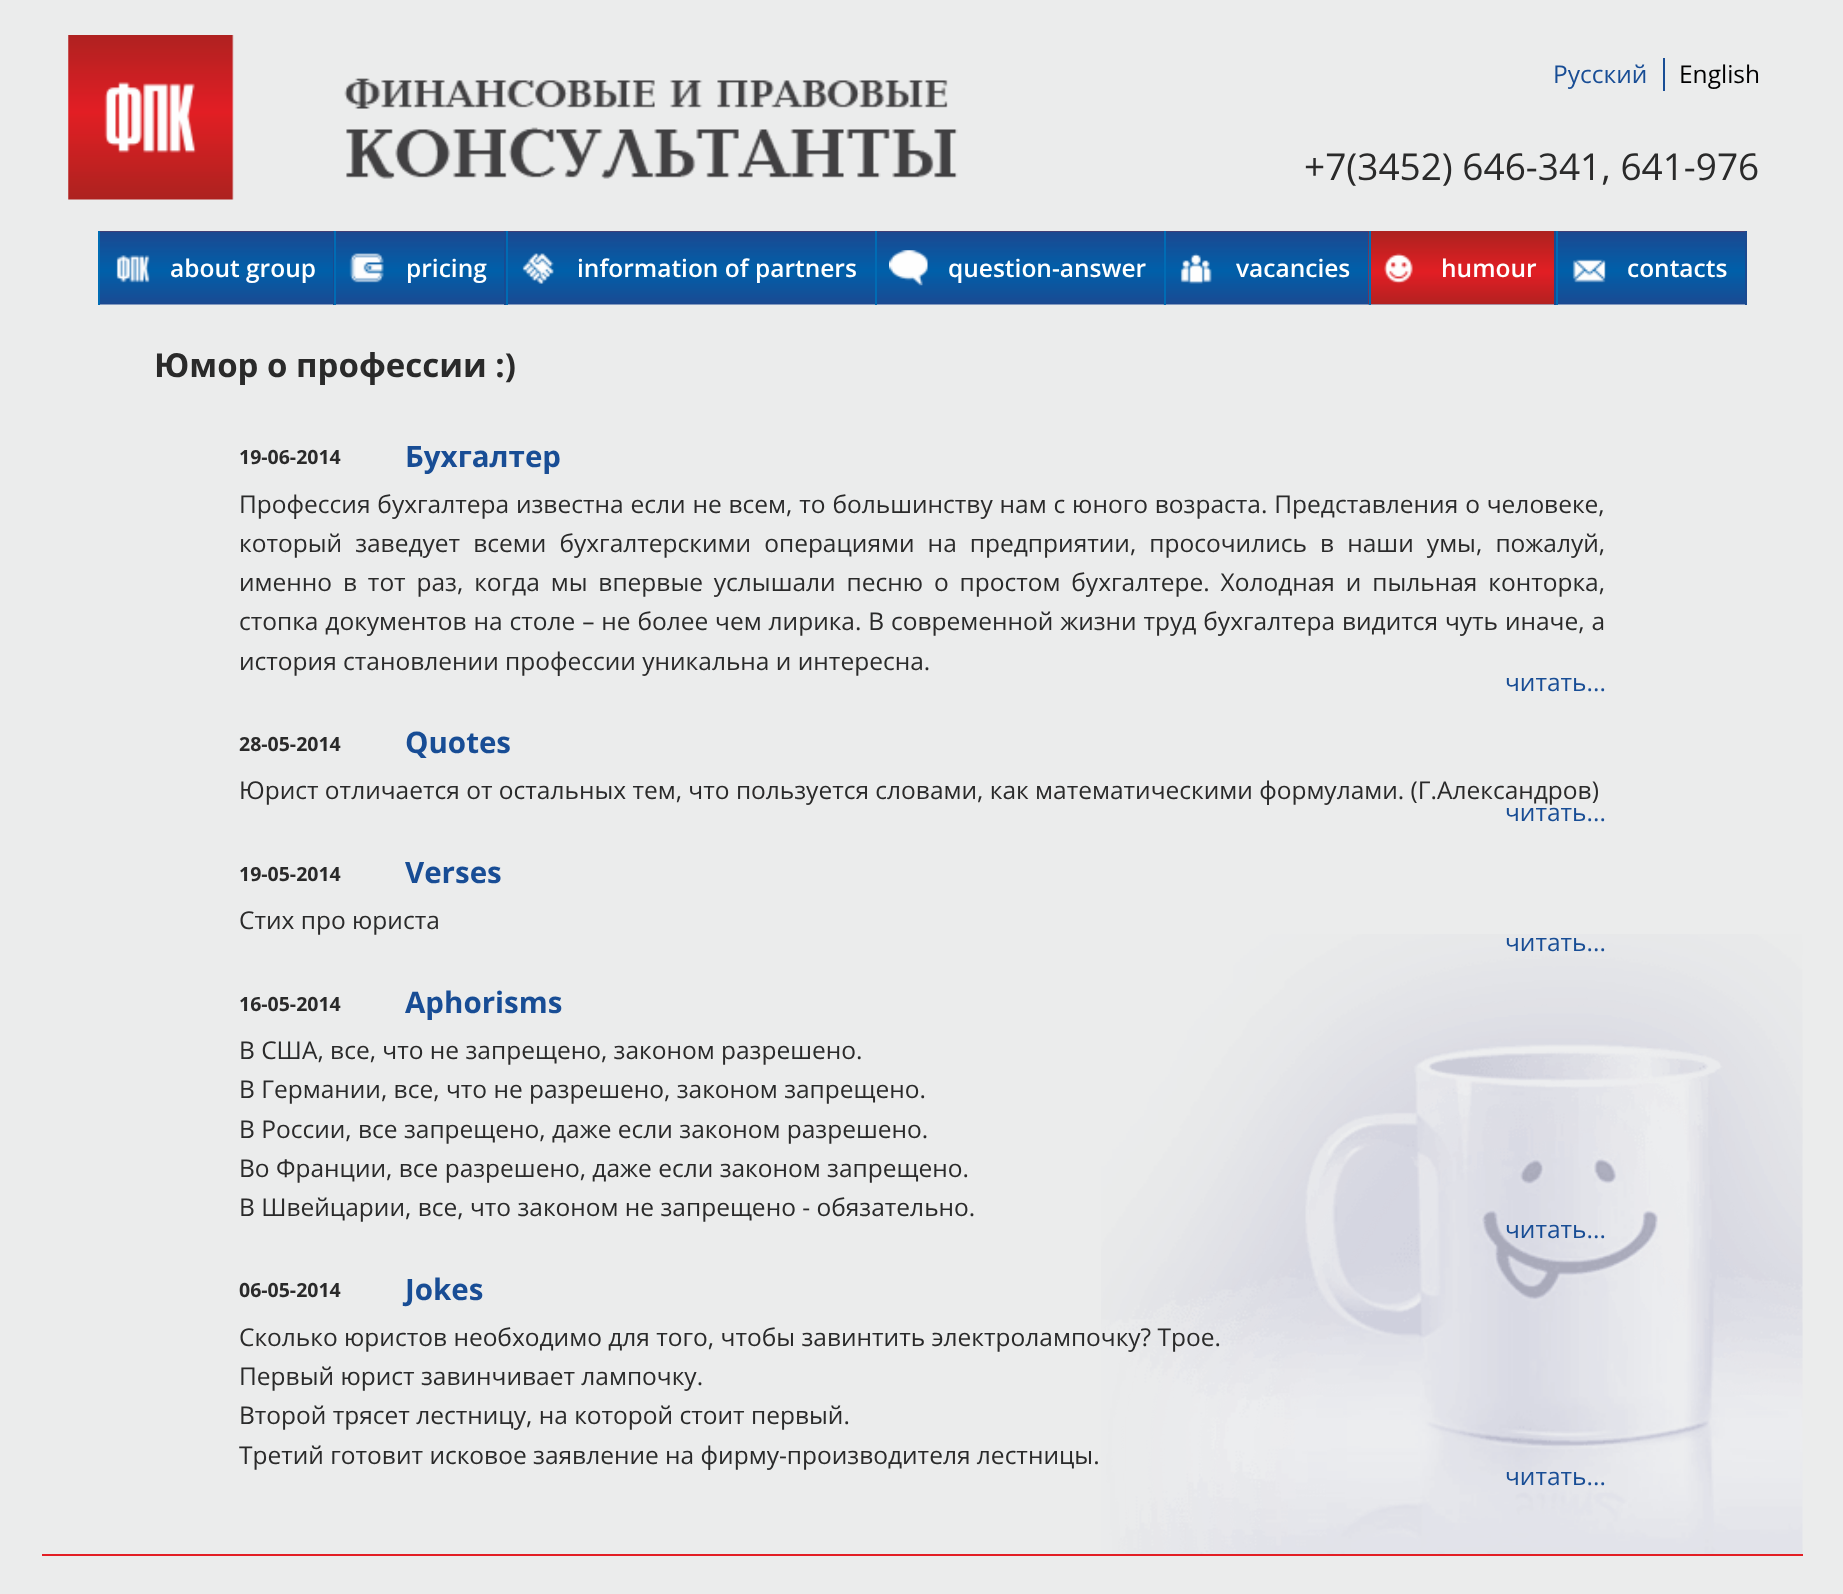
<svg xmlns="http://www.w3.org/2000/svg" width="1843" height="1594">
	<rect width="100%" height="100%" fill="#EBECEC" />
	<image x="68" y="35" width="890" height="165" href="assets/img1.png" />
	<text x="1553" y="83" font-family="Open Sans" font-size="24.5" fill="#184D95">Русский</text>
	<rect x="1663" y="58" width="2" height="33" fill="#184D95" />
	<text x="1679" y="83" font-family="Open Sans" font-size="24.5" fill="#000000">English</text>
	<text x="1304" y="180" font-family="Open Sans" font-size="37" fill="#2A2A2A">+7(3452) 646-341, 641-976</text>
	<image x="100" y="231" width="233" height="74" href="assets/img2.png" />
	<image x="116" y="255" width="34" height="28" href="assets/img3.png" />
	<rect x="333" y="231" width="1" height="74" fill="#1A4A90" />
	<rect x="98" y="231" width="2" height="74" fill="#006CB4" />
	<text x="170" y="277" font-family="Open Sans" font-size="24.5" font-weight="600" fill="#FFFFFF">about group</text>
	<image x="336" y="231" width="168" height="74" href="assets/img4.png" />
	<image x="349" y="253" width="35" height="30" href="assets/img5.png" />
	<rect x="504" y="231" width="2" height="74" fill="#1A4A90" />
	<rect x="334" y="231" width="2" height="74" fill="#006CB4" />
	<text x="406" y="277" font-family="Open Sans" font-size="24.5" font-weight="600" fill="#FFFFFF">pricing</text>
	<image x="505" y="231" width="370" height="74" href="assets/img6.png" />
	<image x="522" y="253" width="32" height="31" href="assets/img7.png" />
	<rect x="506" y="231" width="2" height="74" fill="#006CB4" />
	<text x="577" y="277" font-family="Open Sans" font-size="24.5" font-weight="600" fill="#FFFFFF">information of partners</text>
	<image x="877" y="231" width="287" height="74" href="assets/img8.png" />
	<image x="889" y="250" width="39" height="36" href="assets/img9.png" />
	<rect x="875" y="231" width="2" height="74" fill="#006CB4" />
	<text x="948" y="277" font-family="Open Sans" font-size="24.5" font-weight="600" fill="#FFFFFF">question-answer</text>
	<image x="1163" y="231" width="206" height="74" href="assets/img10.png" />
	<image x="1180" y="253" width="32" height="31" href="assets/img11.png" />
	<rect x="1164" y="231" width="2" height="74" fill="#006CB4" />
	<text x="1236" y="277" font-family="Open Sans" font-size="24.5" font-weight="600" fill="#FFFFFF">vacancies</text>
	<image x="1368" y="231" width="186" height="74" href="assets/img12.png" />
	<image x="1384" y="253" width="29" height="31" href="assets/img13.png" />
	<rect x="1554" y="231" width="2" height="74" fill="#1A4A90" />
	<rect x="1369" y="231" width="2" height="74" fill="#006CB4" />
	<text x="1441" y="277" font-family="Open Sans" font-size="24.5" font-weight="600" fill="#FFFFFF">humour</text>
	<image x="1555" y="231" width="190" height="74" href="assets/img14.png" />
	<image x="1572" y="259" width="34" height="24" href="assets/img15.png" />
	<rect x="1745" y="231" width="2" height="74" fill="#1A4A90" />
	<rect x="1556" y="231" width="2" height="74" fill="#006CB4" />
	<text x="1627" y="277" font-family="Open Sans" font-size="24.5" font-weight="600" fill="#FFFFFF">contacts</text>
	<image x="1101" y="934" width="702" height="620" href="assets/img16.png" />
	<text x="154" y="377" font-family="Open Sans" font-size="33" font-weight="700" fill="#2A2A2A">Юмор о профессии :)</text>
	<text x="239" y="464" font-family="Open Sans" font-size="19.5" font-weight="700" fill="#2A2A2A">19-06-2014</text>
	<text x="405" y="467" font-family="Open Sans" font-size="29.5" font-weight="700" fill="#184D95">Бухгалтер</text>
	<g font-family="Open Sans" font-size="24.5" fill="#2A2A2A">
		<text x="239" y="513" word-spacing="0.5">Профессия бухгалтера известна если не всем, то большинству нам с юного возраста. Представления о человеке,</text>
		<text x="239" y="552" word-spacing="6.75">который заведует всеми бухгалтерскими операциями на предприятии, просочились в наши умы, пожалуй,</text>
		<text x="239" y="591" word-spacing="4.5">именно в тот раз, когда мы впервые услышали песню о простом бухгалтере. Холодная и пыльная конторка,</text>
		<text x="239" y="630" word-spacing="0.5">стопка документов на столе – не более чем лирика. В современной жизни труд бухгалтера видится чуть иначе, а</text>
		<text x="239" y="670">история становлении профессии уникальна и интересна.</text>
	</g>
	<text x="1505" y="691" font-family="Open Sans" font-size="24.5" fill="#184D95">читать...</text>
	<text x="239" y="751" font-family="Open Sans" font-size="19.5" font-weight="700" fill="#2A2A2A">28-05-2014</text>
	<text x="405" y="753" font-family="Open Sans" font-size="29.5" font-weight="700" fill="#184D95">Quotes</text>
	<text x="239" y="799" font-family="Open Sans" font-size="24.5" fill="#2A2A2A">Юрист отличается от остальных тем, что пользуется словами, как математическими формулами. (Г.Александров)</text>
	<text x="1505" y="821" font-family="Open Sans" font-size="24.5" fill="#184D95">читать...</text>
	<text x="239" y="881" font-family="Open Sans" font-size="19.5" font-weight="700" fill="#2A2A2A">19-05-2014</text>
	<text x="405" y="883" font-family="Open Sans" font-size="29.5" font-weight="700" fill="#184D95">Verses</text>
	<text x="239" y="929" font-family="Open Sans" font-size="24.5" fill="#2A2A2A">Стих про юриста</text>
	<text x="1505" y="951" font-family="Open Sans" font-size="24.5" fill="#184D95">читать...</text>
	<text x="239" y="1011" font-family="Open Sans" font-size="19.5" font-weight="700" fill="#2A2A2A">16-05-2014</text>
	<text x="405" y="1013" font-family="Open Sans" font-size="29.5" font-weight="700" fill="#184D95">Aphorisms</text>
	<g font-family="Open Sans" font-size="24.5" fill="#2A2A2A">
		<text x="239" y="1059">В США, все, что не запрещено, законом разрешено.</text>
		<text x="239" y="1098">В Германии, все, что не разрешено, законом запрещено.</text>
		<text x="239" y="1138">В России, все запрещено, даже если законом разрешено.</text>
		<text x="239" y="1177">Во Франции, все разрешено, даже если законом запрещено.</text>
		<text x="239" y="1216">В Швейцарии, все, что законом не запрещено - обязательно.</text>
	</g>
	<text x="1505" y="1238" font-family="Open Sans" font-size="24.5" fill="#184D95">читать...</text>
	<text x="239" y="1297" font-family="Open Sans" font-size="19.5" font-weight="700" fill="#2A2A2A">06-05-2014</text>
	<text x="405" y="1300" font-family="Open Sans" font-size="29.5" font-weight="700" fill="#184D95">Jokes</text>
	<g font-family="Open Sans" font-size="24.5" fill="#2A2A2A">
		<text x="239" y="1346">Сколько юристов необходимо для того, чтобы завинтить электролампочку? Трое.</text>
		<text x="239" y="1385">Первый юрист завинчивает лампочку.</text>
		<text x="239" y="1424">Второй трясет лестницу, на которой стоит первый.</text>
		<text x="239" y="1464">Третий готовит исковое заявление на фирму-производителя лестницы.</text>
	</g>
	<text x="1505" y="1485" font-family="Open Sans" font-size="24.5" fill="#184D95">читать...</text>
	<rect x="42" y="1554" width="1761" height="2" fill="#E31E24" />
</svg>
